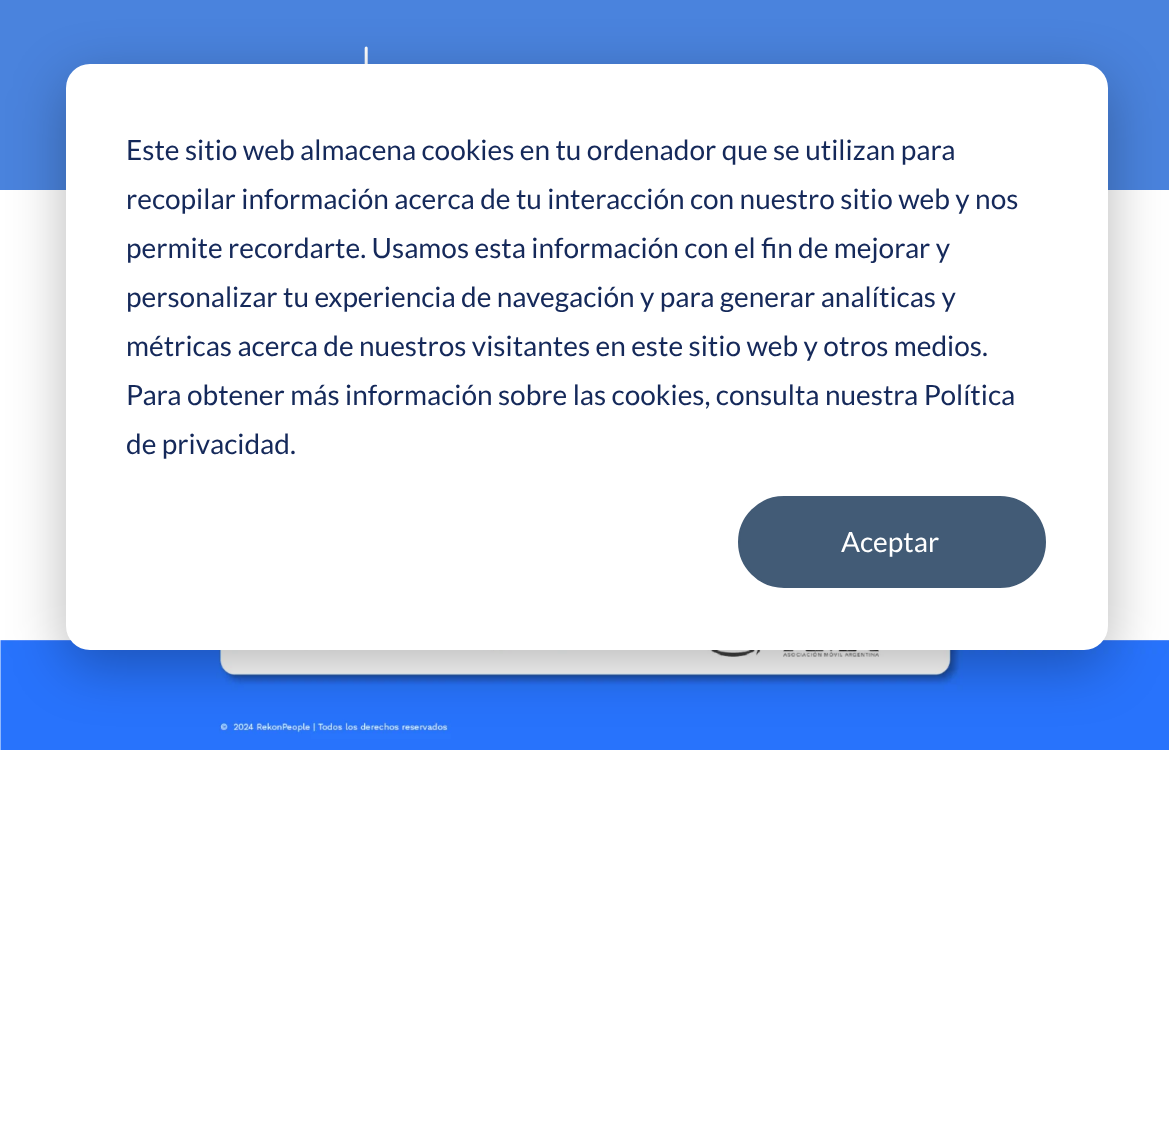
<svg xmlns="http://www.w3.org/2000/svg" width="1169" height="1121">
	<rect width="100%" height="100%" fill="#FFFFFF" />
	<rect x="0" y="0" width="1169" height="190" fill="#4A83DD" />
	<image x="364" y="46" width="4" height="18" href="assets/img1.png" />
	<image x="0" y="640" width="1169" height="110" href="assets/img2.png" />
	<rect x="66" y="80" width="1042" height="586" rx="24" fill="#000000" fill-opacity="0.28" filter="blur(28px)" />
	<rect x="66" y="64" width="1042" height="586" rx="24" fill="#FFFFFF" />
	<g font-family="Lato" font-size="28" fill="#15295A">
		<text x="126" y="160">Este sitio web almacena cookies en tu ordenador que se utilizan para</text>
		<text x="126" y="209">recopilar información acerca de tu interacción con nuestro sitio web y nos</text>
		<text x="126" y="258">permite recordarte. Usamos esta información con el fin de mejorar y</text>
		<text x="126" y="307">personalizar tu experiencia de navegación y para generar analíticas y</text>
		<text x="126" y="356">métricas acerca de nuestros visitantes en este sitio web y otros medios.</text>
		<text x="126" y="405">Para obtener más información sobre las cookies, consulta nuestra Política</text>
		<text x="126" y="454">de privacidad.</text>
	</g>
	<rect x="739" y="497" width="306" height="90" rx="45" fill="#425B76" stroke="#425B76" stroke-width="2" />
	<text x="841" y="552" font-family="Lato" font-size="28" fill="#FFFFFF">Aceptar</text>
</svg>
